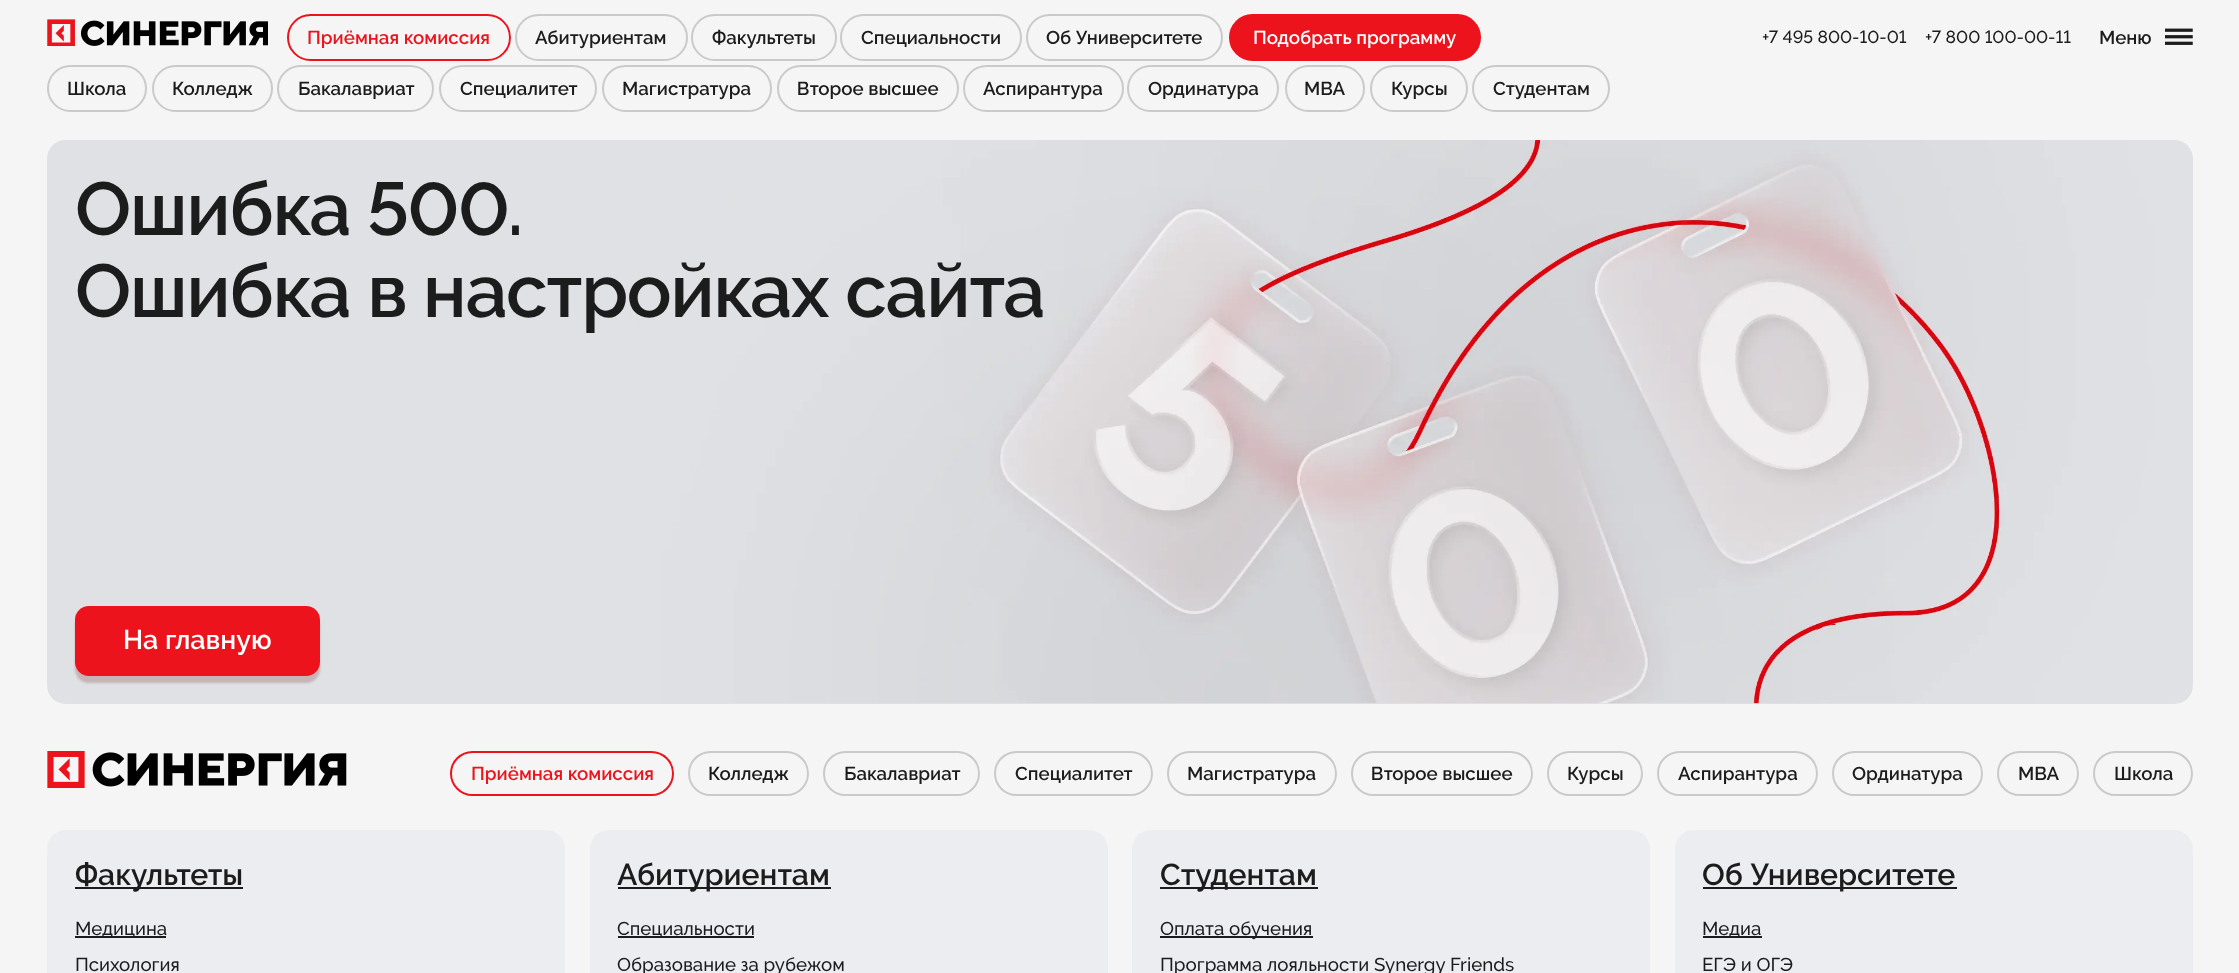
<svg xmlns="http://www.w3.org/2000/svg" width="2239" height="973">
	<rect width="100%" height="100%" fill="#F5F5F6" />
	<image x="47" y="19" width="221" height="27" href="assets/img1.png" />
	<rect x="288" y="15" width="222" height="45" rx="22.5" fill="none" stroke="#ED131C" stroke-width="2" />
	<text x="307" y="44" font-family="Raleway" font-size="18.7" font-weight="600" fill="#ED131C">Приёмная комиссия</text>
	<rect x="516" y="15" width="171" height="45" rx="22.5" fill="none" stroke="#CACACB" stroke-width="2" />
	<text x="535" y="44" font-family="Raleway" font-size="18.7" font-weight="600" fill="#1C1C1C">Абитуриентам</text>
	<rect x="692" y="15" width="144" height="45" rx="22.5" fill="none" stroke="#CACACB" stroke-width="2" />
	<text x="712" y="44" font-family="Raleway" font-size="18.7" font-weight="600" fill="#1C1C1C">Факультеты</text>
	<rect x="841" y="15" width="180" height="45" rx="22.5" fill="none" stroke="#CACACB" stroke-width="2" />
	<text x="861" y="44" font-family="Raleway" font-size="18.7" font-weight="600" fill="#1C1C1C">Специальности</text>
	<rect x="1027" y="15" width="195" height="45" rx="22.5" fill="none" stroke="#CACACB" stroke-width="2" />
	<text x="1046" y="44" font-family="Raleway" font-size="18.7" font-weight="600" fill="#1C1C1C">Об Университете</text>
	<rect x="1230" y="15" width="250" height="45" rx="22.5" fill="#ED131C" stroke="#ED131C" stroke-width="2" />
	<text x="1253" y="44" font-family="Raleway" font-size="18.7" font-weight="600" fill="#FFFFFF">Подобрать программу</text>
	<g font-family="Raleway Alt" font-size="17.5" font-weight="500" fill="#1C1C1C">
		<text x="1762" y="43">+7 495 800-10-01</text>
		<text x="1925" y="43">+7 800 100-00-11</text>
	</g>
	<text x="2099" y="44" font-family="Raleway" font-size="18.7" font-weight="600" fill="#1C1C1C">Меню</text>
	<image x="2165" y="28" width="28" height="17" href="assets/img2.png" />
	<rect x="48" y="66" width="98" height="45" rx="22.5" fill="none" stroke="#CACACB" stroke-width="2" />
	<text x="67" y="95" font-family="Raleway" font-size="18.7" font-weight="600" fill="#1C1C1C">Школа</text>
	<rect x="153" y="66" width="119" height="45" rx="22.5" fill="none" stroke="#CACACB" stroke-width="2" />
	<text x="172" y="95" font-family="Raleway" font-size="18.7" font-weight="600" fill="#1C1C1C">Колледж</text>
	<rect x="278" y="66" width="155" height="45" rx="22.5" fill="none" stroke="#CACACB" stroke-width="2" />
	<text x="298" y="95" font-family="Raleway" font-size="18.7" font-weight="600" fill="#1C1C1C">Бакалавриат</text>
	<rect x="440" y="66" width="156" height="45" rx="22.5" fill="none" stroke="#CACACB" stroke-width="2" />
	<text x="460" y="95" font-family="Raleway" font-size="18.7" font-weight="600" fill="#1C1C1C">Специалитет</text>
	<rect x="603" y="66" width="168" height="45" rx="22.5" fill="none" stroke="#CACACB" stroke-width="2" />
	<text x="622" y="95" font-family="Raleway" font-size="18.7" font-weight="600" fill="#1C1C1C">Магистратура</text>
	<rect x="778" y="66" width="180" height="45" rx="22.5" fill="none" stroke="#CACACB" stroke-width="2" />
	<text x="797" y="95" font-family="Raleway" font-size="18.7" font-weight="600" fill="#1C1C1C">Второе высшее</text>
	<rect x="964" y="66" width="159" height="45" rx="22.5" fill="none" stroke="#CACACB" stroke-width="2" />
	<text x="983" y="95" font-family="Raleway" font-size="18.7" font-weight="600" fill="#1C1C1C">Аспирантура</text>
	<rect x="1128" y="66" width="150" height="45" rx="22.5" fill="none" stroke="#CACACB" stroke-width="2" />
	<text x="1148" y="95" font-family="Raleway" font-size="18.7" font-weight="600" fill="#1C1C1C">Ординатура</text>
	<rect x="1286" y="66" width="78" height="45" rx="22.5" fill="none" stroke="#CACACB" stroke-width="2" />
	<text x="1304" y="95" font-family="Raleway" font-size="18.7" font-weight="600" fill="#1C1C1C">MBA</text>
	<rect x="1371" y="66" width="96" height="45" rx="22.5" fill="none" stroke="#CACACB" stroke-width="2" />
	<text x="1391" y="95" font-family="Raleway" font-size="18.7" font-weight="600" fill="#1C1C1C">Курсы</text>
	<rect x="1473" y="66" width="136" height="45" rx="22.5" fill="none" stroke="#CACACB" stroke-width="2" />
	<text x="1493" y="95" font-family="Raleway" font-size="18.7" font-weight="600" fill="#1C1C1C">Студентам</text>
	<rect x="47" y="140" width="2146" height="564" rx="19" fill="#E0E1E5" />
	<image x="48" y="140" width="2144" height="564" href="assets/img3.png" />
	<text x="75" y="235" font-family="Raleway Alt" font-size="74.7" font-weight="600" letter-spacing="-1.5" fill="#1C1C1C">Ошибка 500.</text>
	<text x="75" y="317" font-family="Raleway" font-size="74.7" font-weight="600" letter-spacing="-1.5" fill="#1C1C1C">Ошибка в настройках сайта</text>
	<rect x="75" y="613" width="245" height="70" rx="14" fill="#660000" fill-opacity="0.2" filter="blur(1px)" />
	<rect x="75" y="606" width="245" height="70" rx="14" fill="#ED131C" />
	<text x="123" y="649" font-family="Raleway" font-size="27" font-weight="600" fill="#FFFFFF">На главную</text>
	<image x="47" y="751" width="300" height="37" href="assets/img4.png" />
	<rect x="451" y="752" width="222" height="43" rx="21.5" fill="none" stroke="#ED131C" stroke-width="2" />
	<text x="471" y="780" font-family="Raleway" font-size="18.7" font-weight="600" fill="#ED131C">Приёмная комиссия</text>
	<rect x="689" y="752" width="119" height="43" rx="21.5" fill="none" stroke="#CACACB" stroke-width="2" />
	<text x="708" y="780" font-family="Raleway" font-size="18.7" font-weight="600" fill="#1C1C1C">Колледж</text>
	<rect x="824" y="752" width="155" height="43" rx="21.5" fill="none" stroke="#CACACB" stroke-width="2" />
	<text x="844" y="780" font-family="Raleway" font-size="18.7" font-weight="600" fill="#1C1C1C">Бакалавриат</text>
	<rect x="995" y="752" width="157" height="43" rx="21.5" fill="none" stroke="#CACACB" stroke-width="2" />
	<text x="1015" y="780" font-family="Raleway" font-size="18.7" font-weight="600" fill="#1C1C1C">Специалитет</text>
	<rect x="1168" y="752" width="168" height="43" rx="21.5" fill="none" stroke="#CACACB" stroke-width="2" />
	<text x="1187" y="780" font-family="Raleway" font-size="18.7" font-weight="600" fill="#1C1C1C">Магистратура</text>
	<rect x="1352" y="752" width="180" height="43" rx="21.5" fill="none" stroke="#CACACB" stroke-width="2" />
	<text x="1371" y="780" font-family="Raleway" font-size="18.7" font-weight="600" fill="#1C1C1C">Второе высшее</text>
	<rect x="1548" y="752" width="94" height="43" rx="21.5" fill="none" stroke="#CACACB" stroke-width="2" />
	<text x="1567" y="780" font-family="Raleway" font-size="18.7" font-weight="600" fill="#1C1C1C">Курсы</text>
	<rect x="1658" y="752" width="159" height="43" rx="21.5" fill="none" stroke="#CACACB" stroke-width="2" />
	<text x="1678" y="780" font-family="Raleway" font-size="18.7" font-weight="600" fill="#1C1C1C">Аспирантура</text>
	<rect x="1833" y="752" width="149" height="43" rx="21.5" fill="none" stroke="#CACACB" stroke-width="2" />
	<text x="1852" y="780" font-family="Raleway" font-size="18.7" font-weight="600" fill="#1C1C1C">Ординатура</text>
	<rect x="1998" y="752" width="80" height="43" rx="21.5" fill="none" stroke="#CACACB" stroke-width="2" />
	<text x="2018" y="780" font-family="Raleway" font-size="18.7" font-weight="600" fill="#1C1C1C">MBA</text>
	<rect x="2094" y="752" width="98" height="43" rx="21.5" fill="none" stroke="#CACACB" stroke-width="2" />
	<text x="2114" y="780" font-family="Raleway" font-size="18.7" font-weight="600" fill="#1C1C1C">Школа</text>
	<rect x="47" y="830" width="518" height="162" rx="19" fill="#ECEDF0" />
	<rect x="75" y="887" width="168" height="2" fill="#1C1C1C" />
	<text x="75" y="885" font-family="Raleway" font-size="30.25" font-weight="600" fill="#1C1C1C">Факультеты</text>
	<rect x="75" y="936" width="91" height="2" fill="#1C1C1C" />
	<g font-family="Raleway" font-size="18.7" font-weight="500" fill="#1C1C1C">
		<text x="75" y="935">Медицина</text>
		<text x="75" y="971">Психология</text>
	</g>
	<rect x="590" y="830" width="518" height="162" rx="19" fill="#ECEDF0" />
	<rect x="618" y="887" width="213" height="2" fill="#1C1C1C" />
	<text x="617" y="885" font-family="Raleway" font-size="30.25" font-weight="600" fill="#1C1C1C">Абитуриентам</text>
	<rect x="618" y="936" width="136" height="2" fill="#1C1C1C" />
	<g font-family="Raleway" font-size="18.7" font-weight="500" fill="#1C1C1C">
		<text x="617" y="935">Специальности</text>
		<text x="617" y="971">Образование за рубежом</text>
	</g>
	<rect x="1132" y="830" width="518" height="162" rx="19" fill="#ECEDF0" />
	<rect x="1160" y="887" width="158" height="2" fill="#1C1C1C" />
	<text x="1160" y="885" font-family="Raleway" font-size="30.25" font-weight="600" fill="#1C1C1C">Студентам</text>
	<rect x="1160" y="936" width="153" height="2" fill="#1C1C1C" />
	<g font-family="Raleway" font-size="18.7" font-weight="500" fill="#1C1C1C">
		<text x="1160" y="935">Оплата обучения</text>
		<text x="1160" y="971">Программа лояльности Synergy Friends</text>
	</g>
	<rect x="1675" y="830" width="518" height="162" rx="19" fill="#ECEDF0" />
	<rect x="1703" y="887" width="254" height="2" fill="#1C1C1C" />
	<text x="1702" y="885" font-family="Raleway" font-size="30.25" font-weight="600" fill="#1C1C1C">Об Университете</text>
	<rect x="1703" y="936" width="59" height="2" fill="#1C1C1C" />
	<g font-family="Raleway" font-size="18.7" font-weight="500" fill="#1C1C1C">
		<text x="1702" y="935">Медиа</text>
		<text x="1702" y="971">ЕГЭ и ОГЭ</text>
	</g>
</svg>
